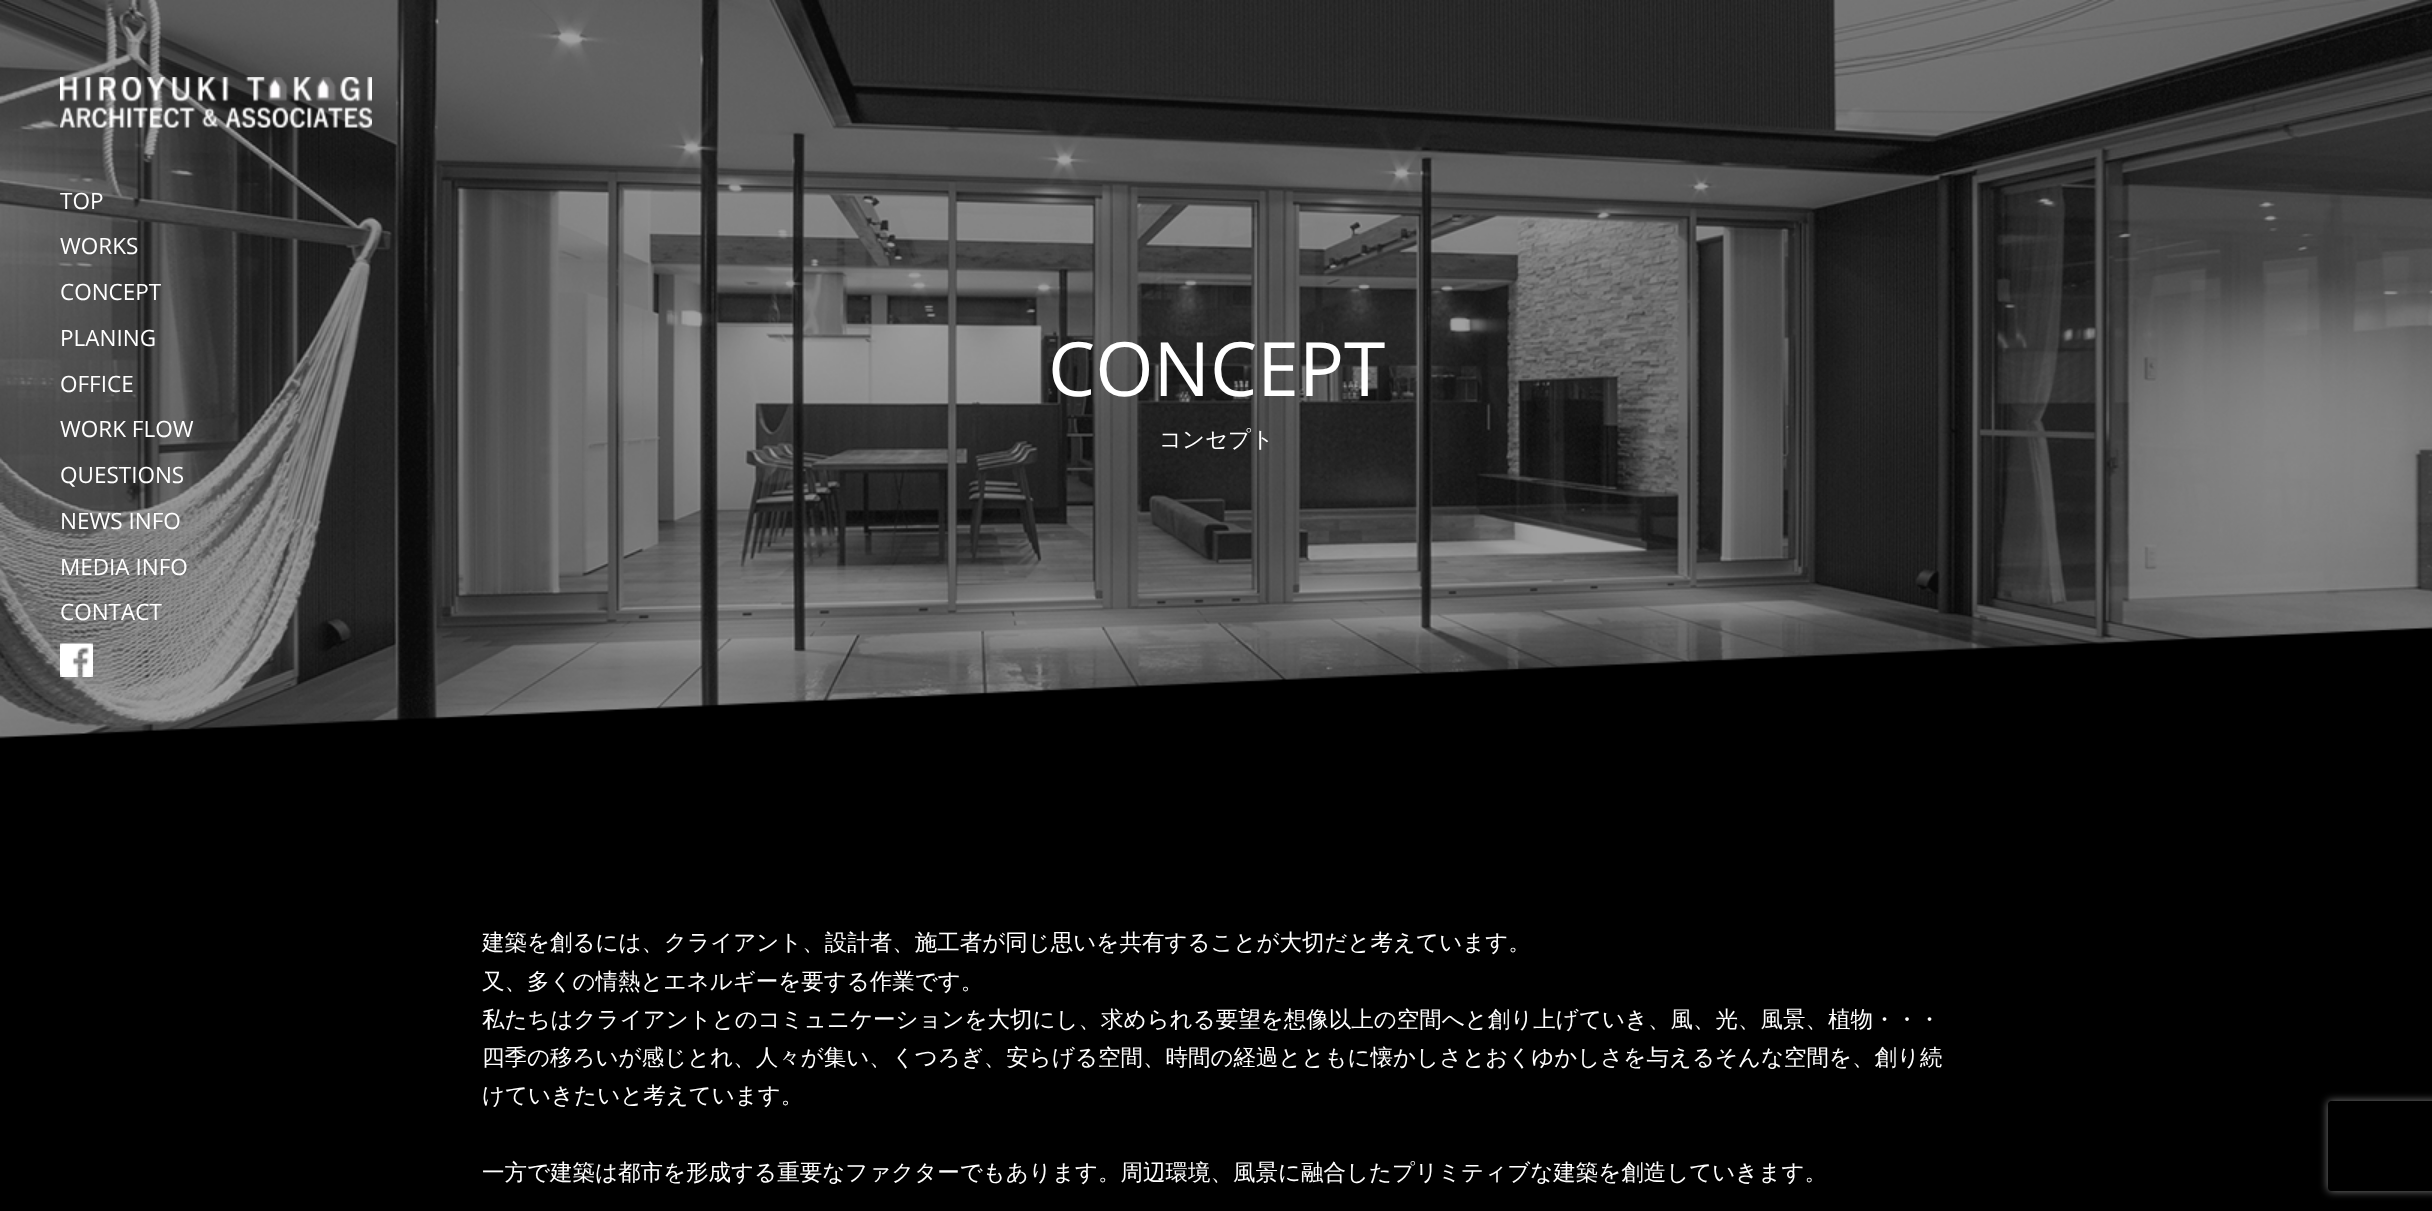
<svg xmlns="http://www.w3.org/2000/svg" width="2432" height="1211">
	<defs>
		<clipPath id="clip1"><path d="M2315 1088H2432V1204H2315ZM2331 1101H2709C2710.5 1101 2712 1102.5 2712 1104V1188C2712 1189.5 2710.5 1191 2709 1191H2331C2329.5 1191 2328 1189.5 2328 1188V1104C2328 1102.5 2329.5 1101 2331 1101Z" clip-rule="evenodd" /></clipPath>
	</defs>
	<rect width="100%" height="100%" fill="#000000" />
	<image x="0" y="0" width="2432" height="739" href="assets/img3.png" />
	<image x="60" y="77" width="312" height="51" href="assets/img1.png" />
	<g font-family="Open Sans" font-size="22.5" fill="#FFFFFF">
		<text x="60" y="209">TOP</text>
		<text x="60" y="254">WORKS</text>
		<text x="60" y="300">CONCEPT</text>
		<text x="60" y="346">PLANING</text>
		<text x="60" y="392">OFFICE</text>
		<text x="60" y="437">WORK FLOW</text>
		<text x="60" y="483">QUESTIONS</text>
		<text x="60" y="529">NEWS INFO</text>
		<text x="60" y="575">MEDIA INFO</text>
		<text x="60" y="620">CONTACT</text>
	</g>
	<image x="60" y="643" width="33" height="34" href="assets/img2.png" />
	<text x="1048" y="396" font-family="Open Sans" font-size="75" fill="#FFFFFF">CONCEPT</text>
	<g font-family="WenQuanYi Zen Hei" font-size="22.5" font-weight="500" fill="#FFFFFF">
		<text x="1159" y="447">コンセプト</text>
		<text x="482" y="950">建築を創るには、クライアント、設計者、施工者が同じ思いを共有することが大切だと考えています。</text>
		<text x="482" y="989">又、多くの情熱とエネルギーを要する作業です。</text>
		<text x="482" y="1027">私たちはクライアントとのコミュニケーションを大切にし、求められる要望を想像以上の空間へと創り上げていき、風、光、風景、植物・・・</text>
		<text x="482" y="1065">四季の移ろいが感じとれ、人々が集い、くつろぎ、安らげる空間、時間の経過とともに懐かしさとおくゆかしさを与えるそんな空間を、創り続</text>
		<text x="482" y="1103">けていきたいと考えています。</text>
		<text x="482" y="1180">一方で建築は都市を形成する重要なファクターでもあります。周辺環境、風景に融合したプリミティブな建築を創造していきます。</text>
	</g>
	<g clip-path="url(#clip1)">
		<rect x="2328" y="1101" width="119" height="90" rx="3" fill="#808080" filter="blur(4px)" />
	</g>
</svg>
